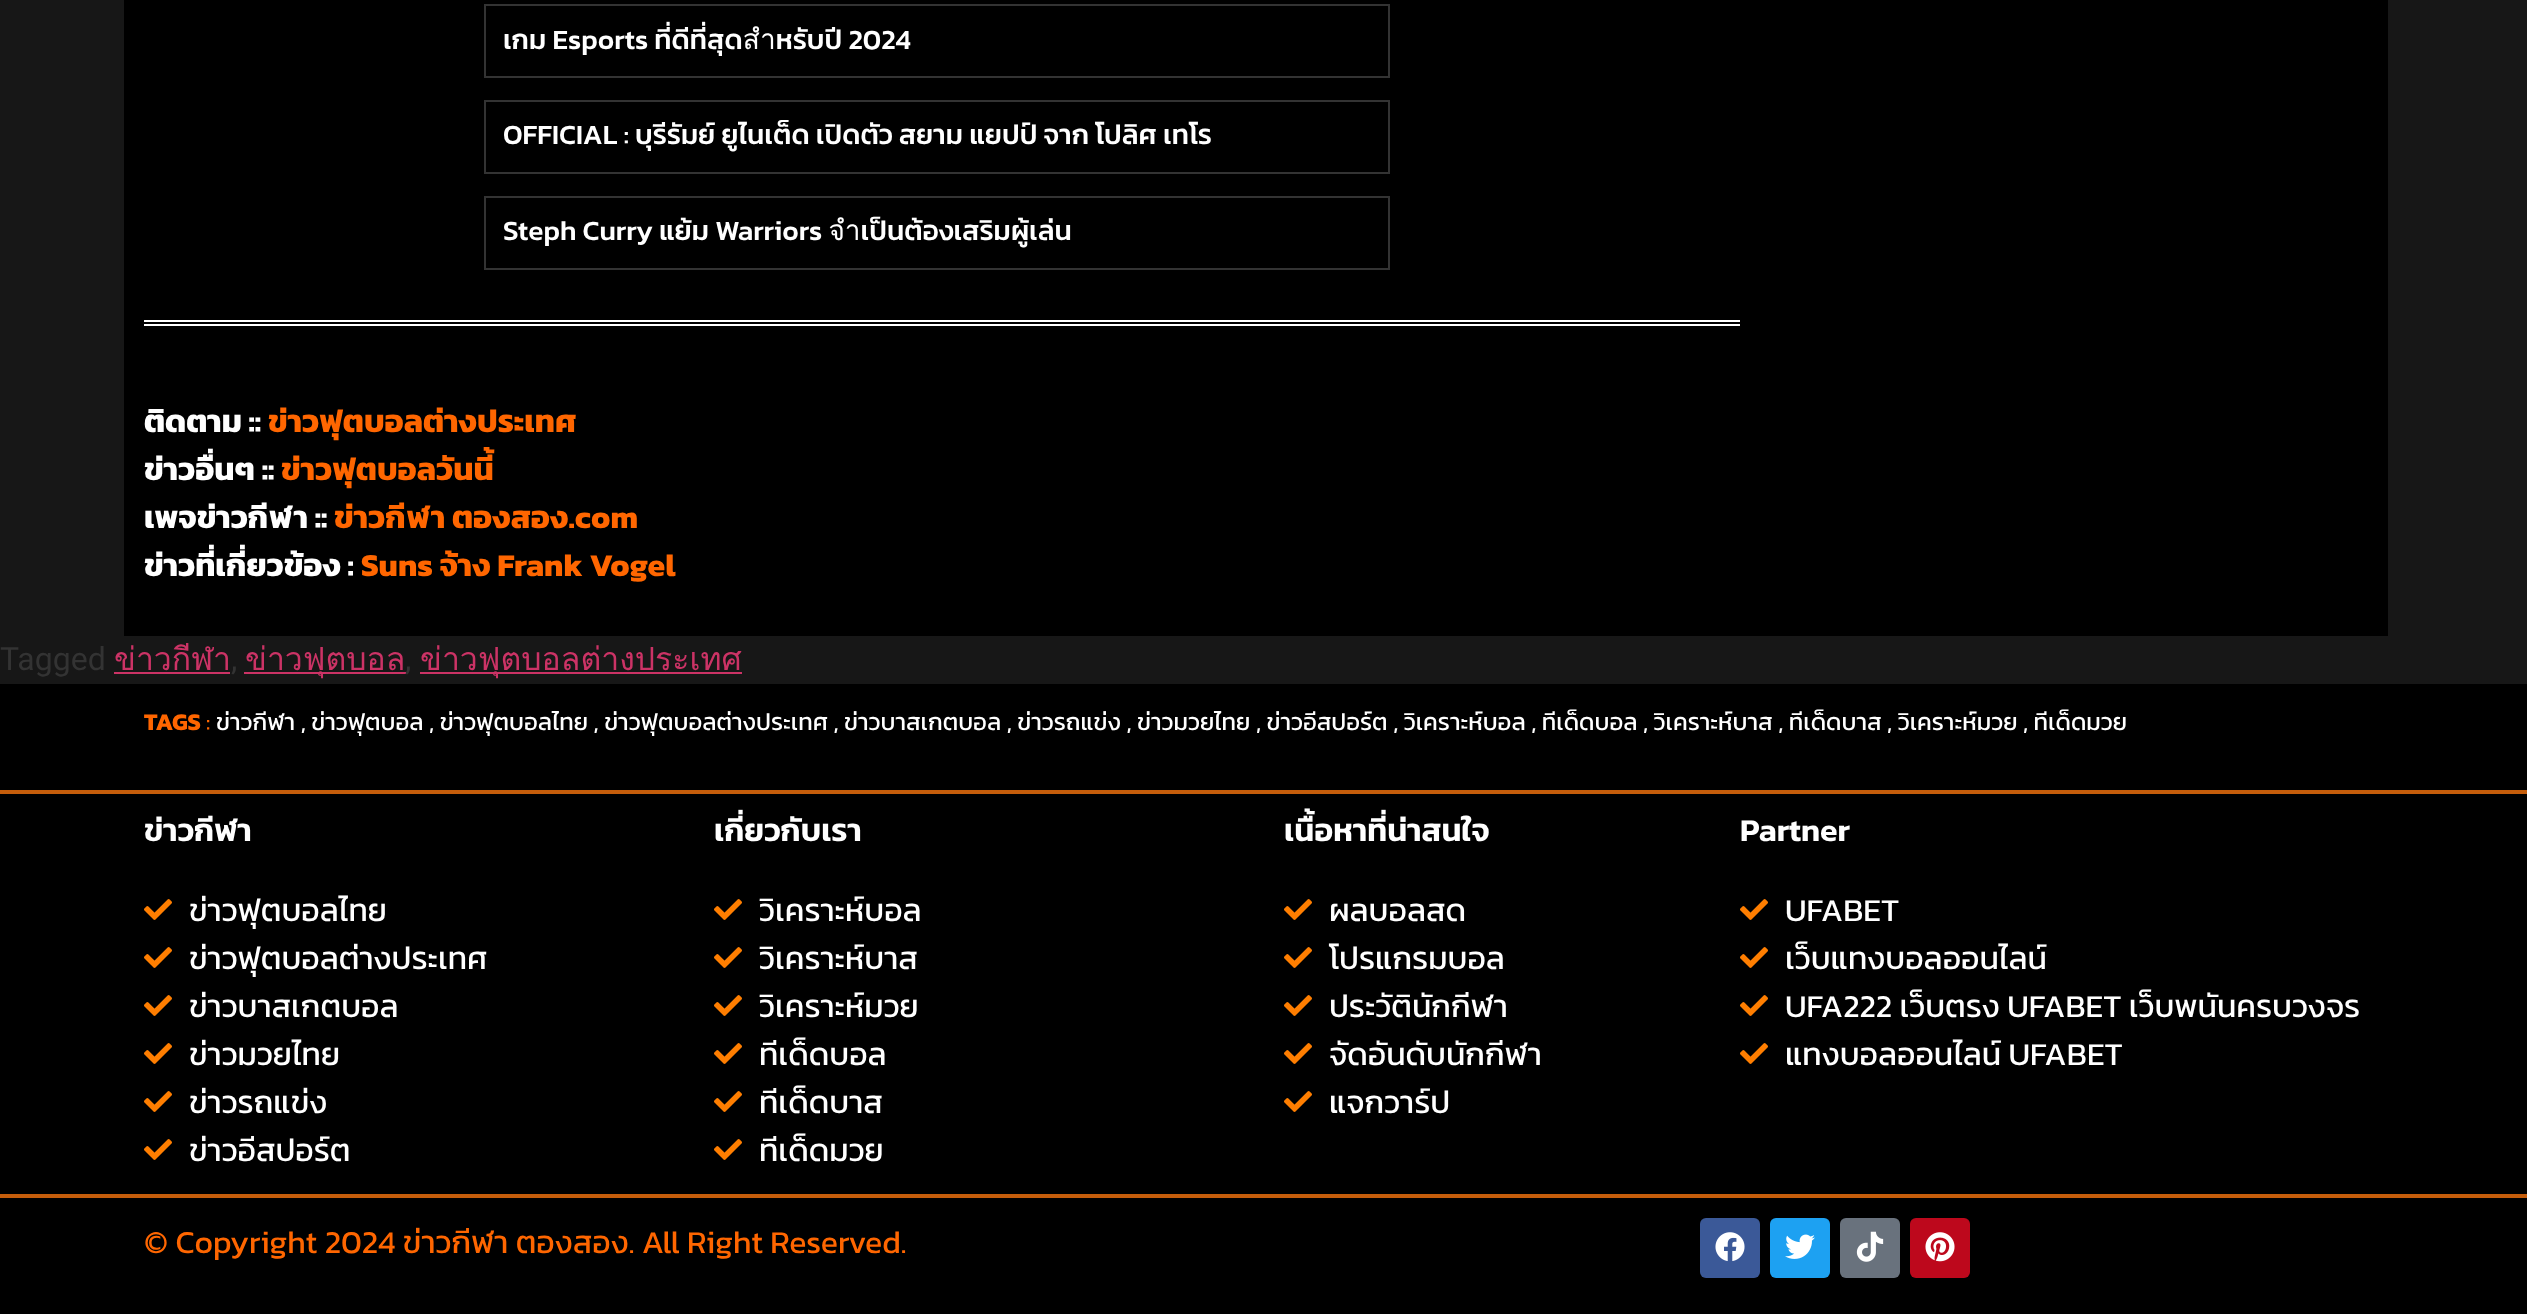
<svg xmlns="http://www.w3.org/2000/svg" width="2527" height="1314">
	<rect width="100%" height="100%" fill="#171717" />
	<rect x="124" y="0" width="2264" height="636" fill="#000000" />
	<rect x="485" y="5" width="904" height="72" fill="none" stroke="#333333" stroke-width="2" />
	<text x="503" y="49" font-family="Kanit" font-size="28" font-weight="500" fill="#FFFFFF">เกม Esports ที่ดีที่สุดสำหรับปี 2024</text>
	<rect x="485" y="101" width="904" height="72" fill="none" stroke="#333333" stroke-width="2" />
	<text x="503" y="144" font-family="Kanit" font-size="28" font-weight="500" fill="#FFFFFF">OFFICIAL : บุรีรัมย์ ยูไนเต็ด เปิดตัว สยาม แยปป์ จาก โปลิศ เทโร</text>
	<rect x="485" y="197" width="904" height="72" fill="none" stroke="#333333" stroke-width="2" />
	<text x="503" y="240" font-family="Kanit" font-size="28" font-weight="500" fill="#FFFFFF">Steph Curry แย้ม Warriors จำเป็นต้องเสริมผู้เล่น</text>
	<rect x="144" y="320" width="1596" height="2" fill="#FFFFFF" />
	<rect x="144" y="324" width="1596" height="2" fill="#FFFFFF" />
	<text x="144" y="432" font-family="Kanit" font-size="32" font-weight="700" fill="#FFFFFF">ติดตาม ::</text>
	<text x="268" y="432" font-family="Kanit" font-size="32" font-weight="700" fill="#FF6600">ข่าวฟุตบอลต่างประเทศ</text>
	<text x="144" y="480" font-family="Kanit" font-size="32" font-weight="700" fill="#FFFFFF">ข่าวอื่นๆ ::</text>
	<text x="281" y="480" font-family="Kanit" font-size="32" font-weight="700" fill="#FF6600">ข่าวฟุตบอลวันนี้</text>
	<text x="144" y="528" font-family="Kanit" font-size="32" font-weight="700" fill="#FFFFFF">เพจข่าวกีฬา ::</text>
	<text x="334" y="528" font-family="Kanit" font-size="32" font-weight="700" fill="#FF6600">ข่าวกีฬา ตองสอง.com</text>
	<text x="144" y="576" font-family="Kanit" font-size="32" font-weight="700" fill="#FFFFFF">ข่าวที่เกี่ยวข้อง :</text>
	<text x="361" y="576" font-family="Kanit" font-size="32" font-weight="700" fill="#FF6600">Suns จ้าง Frank Vogel</text>
	<text x="0" y="670" font-family="Roboto" font-size="32" fill="#333333">Tagged</text>
	<text x="114" y="670" font-family="Loma" font-size="32" fill="#CC3366">ข่าวกีฬา</text>
	<text x="231" y="670" font-family="Roboto" font-size="32" fill="#333333">,</text>
	<rect x="114" y="672" width="116" height="2" fill="#CC3366" />
	<rect x="244" y="672" width="162" height="2" fill="#CC3366" />
	<text x="245" y="670" font-family="Loma" font-size="32" fill="#CC3366">ข่าวฟุตบอล</text>
	<text x="405" y="670" font-family="Roboto" font-size="32" fill="#333333">,</text>
	<rect x="420" y="672" width="322" height="2" fill="#CC3366" />
	<text x="420" y="670" font-family="Loma" font-size="32" fill="#CC3366">ข่าวฟุตบอลต่างประเทศ</text>
	<rect x="0" y="684" width="2527" height="106" fill="#000000" />
	<text x="144" y="730" font-family="Kanit" font-size="24" font-weight="700" fill="#FF6600">TAGS</text>
	<text x="206" y="730" font-family="Kanit" font-size="24" fill="#FF6600">:</text>
	<text x="216" y="730" font-family="Kanit" font-size="24" fill="#FFFFFF">ข่าวกีฬา , ข่าวฟุตบอล , ข่าวฟุตบอลไทย , ข่าวฟุตบอลต่างประเทศ , ข่าวบาสเกตบอล , ข่าวรถแข่ง , ข่าวมวยไทย , ข่าวอีสปอร์ต , วิเคราะห์บอล , ทีเด็ดบอล , วิเคราะห์บาส , ทีเด็ดบาส , วิเคราะห์มวย , ทีเด็ดมวย</text>
	<rect x="0" y="794" width="2527" height="400" fill="#000000" />
	<rect x="0" y="790" width="2527" height="4" fill="#C55D0B" />
	<rect x="0" y="1194" width="2527" height="4" fill="#C55D0B" />
	<text x="144" y="841" font-family="Kanit" font-size="32" font-weight="600" fill="#FFFFFF">ข่าวกีฬา</text>
	<image x="144" y="899" width="28" height="21" href="assets/img1.png" />
	<text x="189" y="921" font-family="Kanit" font-size="32" fill="#FFFFFF">ข่าวฟุตบอลไทย</text>
	<image x="144" y="947" width="28" height="21" href="assets/img1.png" />
	<text x="189" y="969" font-family="Kanit" font-size="32" fill="#FFFFFF">ข่าวฟุตบอลต่างประเทศ</text>
	<image x="144" y="995" width="28" height="21" href="assets/img1.png" />
	<text x="189" y="1017" font-family="Kanit" font-size="32" fill="#FFFFFF">ข่าวบาสเกตบอล</text>
	<image x="144" y="1043" width="28" height="21" href="assets/img1.png" />
	<text x="189" y="1065" font-family="Kanit" font-size="32" fill="#FFFFFF">ข่าวมวยไทย</text>
	<image x="144" y="1091" width="28" height="21" href="assets/img1.png" />
	<text x="189" y="1113" font-family="Kanit" font-size="32" fill="#FFFFFF">ข่าวรถแข่ง</text>
	<image x="144" y="1139" width="28" height="21" href="assets/img1.png" />
	<text x="189" y="1161" font-family="Kanit" font-size="32" fill="#FFFFFF">ข่าวอีสปอร์ต</text>
	<text x="714" y="841" font-family="Kanit" font-size="32" font-weight="600" fill="#FFFFFF">เกี่ยวกับเรา</text>
	<image x="714" y="899" width="28" height="21" href="assets/img1.png" />
	<text x="759" y="921" font-family="Kanit" font-size="32" fill="#FFFFFF">วิเคราะห์บอล</text>
	<image x="714" y="947" width="28" height="21" href="assets/img1.png" />
	<text x="759" y="969" font-family="Kanit" font-size="32" fill="#FFFFFF">วิเคราะห์บาส</text>
	<image x="714" y="995" width="28" height="21" href="assets/img1.png" />
	<text x="759" y="1017" font-family="Kanit" font-size="32" fill="#FFFFFF">วิเคราะห์มวย</text>
	<image x="714" y="1043" width="28" height="21" href="assets/img1.png" />
	<text x="759" y="1065" font-family="Kanit" font-size="32" fill="#FFFFFF">ทีเด็ดบอล</text>
	<image x="714" y="1091" width="28" height="21" href="assets/img1.png" />
	<text x="759" y="1113" font-family="Kanit" font-size="32" fill="#FFFFFF">ทีเด็ดบาส</text>
	<image x="714" y="1139" width="28" height="21" href="assets/img1.png" />
	<text x="759" y="1161" font-family="Kanit" font-size="32" fill="#FFFFFF">ทีเด็ดมวย</text>
	<text x="1284" y="841" font-family="Kanit" font-size="32" font-weight="600" fill="#FFFFFF">เนื้อหาที่น่าสนใจ</text>
	<image x="1284" y="899" width="28" height="21" href="assets/img1.png" />
	<text x="1329" y="921" font-family="Kanit" font-size="32" fill="#FFFFFF">ผลบอลสด</text>
	<image x="1284" y="947" width="28" height="21" href="assets/img1.png" />
	<text x="1329" y="969" font-family="Kanit" font-size="32" fill="#FFFFFF">โปรแกรมบอล</text>
	<image x="1284" y="995" width="28" height="21" href="assets/img1.png" />
	<text x="1329" y="1017" font-family="Kanit" font-size="32" fill="#FFFFFF">ประวัตินักกีฬา</text>
	<image x="1284" y="1043" width="28" height="21" href="assets/img1.png" />
	<text x="1329" y="1065" font-family="Kanit" font-size="32" fill="#FFFFFF">จัดอันดับนักกีฬา</text>
	<image x="1284" y="1091" width="28" height="21" href="assets/img1.png" />
	<text x="1329" y="1113" font-family="Kanit" font-size="32" fill="#FFFFFF">แจกวาร์ป</text>
	<text x="1740" y="841" font-family="Kanit" font-size="32" font-weight="600" fill="#FFFFFF">Partner</text>
	<image x="1740" y="899" width="28" height="21" href="assets/img1.png" />
	<text x="1785" y="921" font-family="Kanit" font-size="32" fill="#FFFFFF">UFABET</text>
	<image x="1740" y="947" width="28" height="21" href="assets/img1.png" />
	<text x="1785" y="969" font-family="Kanit" font-size="32" fill="#FFFFFF">เว็บแทงบอลออนไลน์</text>
	<image x="1740" y="995" width="28" height="21" href="assets/img1.png" />
	<text x="1785" y="1017" font-family="Kanit" font-size="32" fill="#FFFFFF">UFA222 เว็บตรง UFABET เว็บพนันครบวงจร</text>
	<image x="1740" y="1043" width="28" height="21" href="assets/img1.png" />
	<text x="1785" y="1065" font-family="Kanit" font-size="32" fill="#FFFFFF">แทงบอลออนไลน์ UFABET</text>
	<rect x="0" y="1198" width="2527" height="116" fill="#000000" />
	<text x="144" y="1253" font-family="Kanit" font-size="32" fill="#FF6600">© Copyright 2024 ข่าวกีฬา ตองสอง. All Right Reserved.</text>
	<rect x="1700" y="1218" width="60" height="60" rx="6" fill="#3B5998" />
	<image x="1715" y="1232" width="30" height="30" href="assets/img2.png" />
	<rect x="1770" y="1218" width="60" height="60" rx="6" fill="#1DA1F2" />
	<image x="1785" y="1234" width="30" height="25" href="assets/img3.png" />
	<rect x="1840" y="1218" width="60" height="60" rx="6" fill="#69727D" />
	<image x="1856" y="1231" width="28" height="31" href="assets/img4.png" />
	<rect x="1910" y="1218" width="60" height="60" rx="6" fill="#BD081C" />
	<image x="1925" y="1232" width="30" height="30" href="assets/img5.png" />
</svg>
